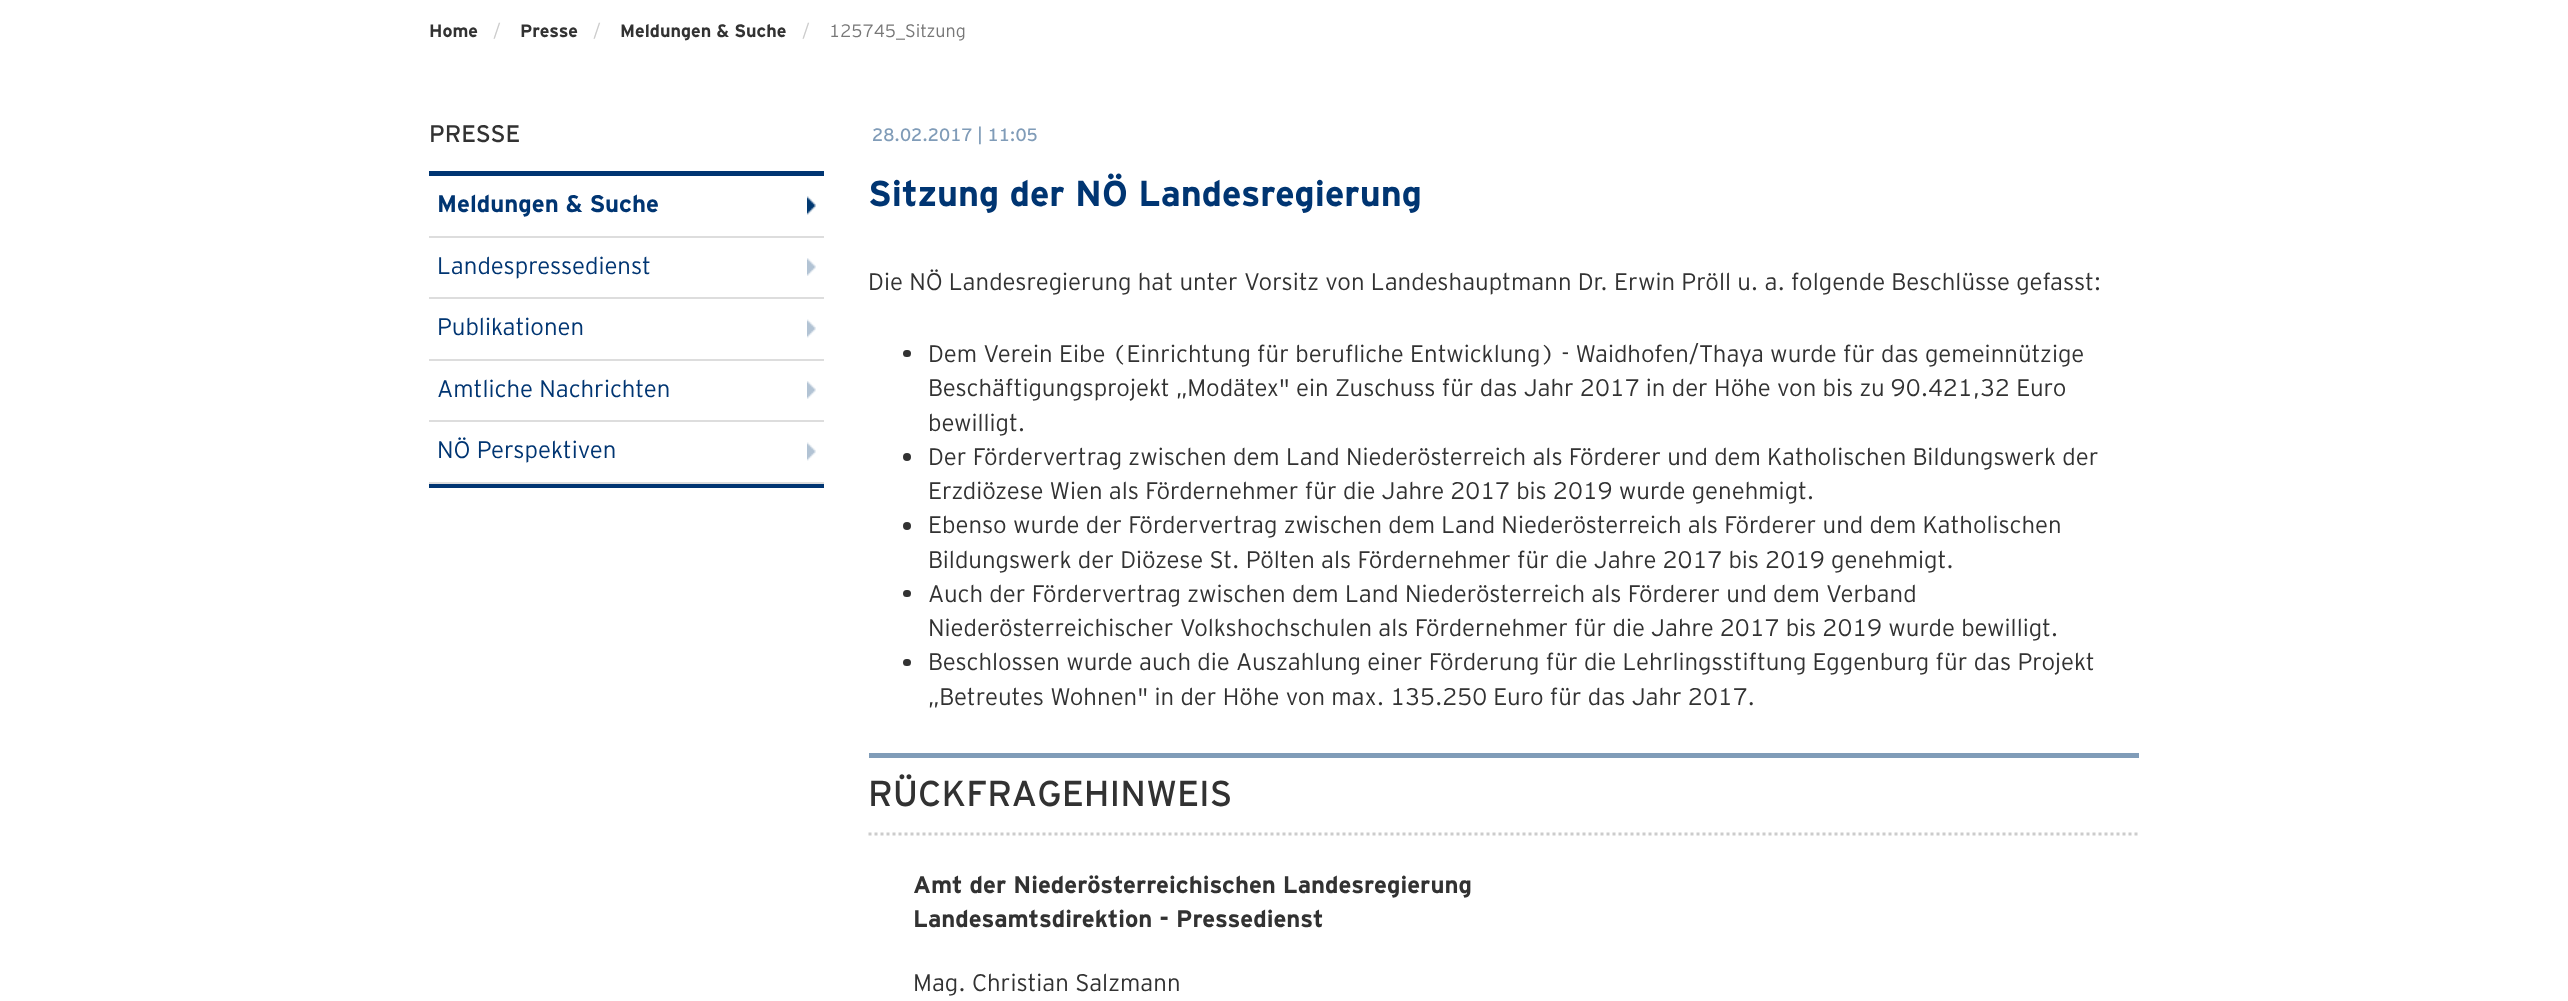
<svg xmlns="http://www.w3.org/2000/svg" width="2568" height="1001">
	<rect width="100%" height="100%" fill="#FFFFFF" />
	<text x="429" y="37" font-family="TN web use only" font-size="18" font-weight="700" fill="#323232">Home</text>
	<text x="493" y="37" font-family="TN web use only" font-size="18" font-weight="300" fill="#CCCCCC">/</text>
	<text x="520" y="37" font-family="TN web use only" font-size="18" font-weight="700" fill="#323232">Presse</text>
	<text x="593" y="37" font-family="TN web use only" font-size="18" font-weight="300" fill="#CCCCCC">/</text>
	<text x="620" y="37" font-family="TN web use only" font-size="18" font-weight="700" fill="#323232">Meldungen &amp; Suche</text>
	<text x="802" y="37" font-family="TN web use only" font-size="18" font-weight="300" fill="#CCCCCC">/</text>
	<text x="829" y="37" font-family="TN web use only" font-size="18" font-weight="300" fill="#777777">125745_Sitzung</text>
	<text x="429" y="142" font-family="TN web use only" font-size="24" fill="#323232">PRESSE</text>
	<rect x="429" y="171" width="395" height="5" fill="#003572" />
	<rect x="429" y="484" width="395" height="4" fill="#003572" />
	<rect x="429" y="236" width="395" height="2" fill="#DDDDDD" />
	<text x="437" y="212" font-family="TN web use only" font-size="24" font-weight="700" fill="#003572">Meldungen &amp; Suche</text>
	<image x="807" y="196" width="9" height="19" href="assets/img1.png" />
	<rect x="429" y="297" width="395" height="2" fill="#DDDDDD" />
	<text x="437" y="274" font-family="TN web use only" font-size="24" font-weight="300" fill="#003572">Landespressedienst</text>
	<image x="807" y="258" width="9" height="18" href="assets/img2.png" />
	<rect x="429" y="359" width="395" height="2" fill="#DDDDDD" />
	<text x="437" y="335" font-family="TN web use only" font-size="24" font-weight="300" fill="#003572">Publikationen</text>
	<image x="807" y="319" width="9" height="19" href="assets/img3.png" />
	<rect x="429" y="420" width="395" height="2" fill="#DDDDDD" />
	<text x="437" y="397" font-family="TN web use only" font-size="24" font-weight="300" fill="#003572">Amtliche Nachrichten</text>
	<image x="807" y="381" width="9" height="18" href="assets/img2.png" />
	<rect x="429" y="482" width="395" height="2" fill="#DDDDDD" />
	<text x="437" y="458" font-family="TN web use only" font-size="24" font-weight="300" fill="#003572">NÖ Perspektiven</text>
	<image x="807" y="442" width="9" height="19" href="assets/img3.png" />
	<text x="872" y="141" font-family="TN web use only" font-size="18" fill="#809CB8">28.02.2017 | 11:05</text>
	<text x="868" y="206" font-family="TN web use only" font-size="36" font-weight="700" fill="#003572">Sitzung der NÖ Landesregierung</text>
	<text x="868" y="290" font-family="TN web use only" font-size="24" font-weight="300" fill="#323232">Die NÖ Landesregierung hat unter Vorsitz von Landeshauptmann Dr. Erwin Pröll u. a. folgende Beschlüsse gefasst:</text>
	<rect x="903" y="350" width="8" height="7" rx="3.5" fill="#323232" />
	<g font-family="TN web use only" font-size="24" font-weight="300" fill="#323232">
		<text x="928" y="362">Dem Verein Eibe (Einrichtung für berufliche Entwicklung) - Waidhofen/Thaya wurde für das gemeinnützige</text>
		<text x="928" y="396">Beschäftigungsprojekt „Modätex" ein Zuschuss für das Jahr 2017 in der Höhe von bis zu 90.421,32 Euro</text>
		<text x="928" y="431">bewilligt.</text>
	</g>
	<circle cx="907" cy="457" r="4" fill="#323232" />
	<g font-family="TN web use only" font-size="24" font-weight="300" fill="#323232">
		<text x="928" y="465">Der Fördervertrag zwischen dem Land Niederösterreich als Förderer und dem Katholischen Bildungswerk der</text>
		<text x="928" y="499">Erzdiözese Wien als Fördernehmer für die Jahre 2017 bis 2019 wurde genehmigt.</text>
	</g>
	<circle cx="907" cy="526" r="4" fill="#323232" />
	<g font-family="TN web use only" font-size="24" font-weight="300" fill="#323232">
		<text x="928" y="533">Ebenso wurde der Fördervertrag zwischen dem Land Niederösterreich als Förderer und dem Katholischen</text>
		<text x="928" y="568">Bildungswerk der Diözese St. Pölten als Fördernehmer für die Jahre 2017 bis 2019 genehmigt.</text>
	</g>
	<rect x="903" y="590" width="8" height="7" rx="3.5" fill="#323232" />
	<g font-family="TN web use only" font-size="24" font-weight="300" fill="#323232">
		<text x="928" y="602">Auch der Fördervertrag zwischen dem Land Niederösterreich als Förderer und dem Verband</text>
		<text x="928" y="636">Niederösterreichischer Volkshochschulen als Fördernehmer für die Jahre 2017 bis 2019 wurde bewilligt.</text>
	</g>
	<rect x="903" y="659" width="8" height="7" rx="3.5" fill="#323232" />
	<g font-family="TN web use only" font-size="24" font-weight="300" fill="#323232">
		<text x="928" y="670">Beschlossen wurde auch die Auszahlung einer Förderung für die Lehrlingsstiftung Eggenburg für das Projekt</text>
		<text x="928" y="705">„Betreutes Wohnen" in der Höhe von max. 135.250 Euro für das Jahr 2017.</text>
	</g>
	<rect x="869" y="753" width="1270" height="5" fill="#809CB8" />
	<text x="868" y="806" font-family="TN web use only" font-size="36" fill="#323232">RÜCKFRAGEHINWEIS</text>
	<path d="M868.5 834H2139" fill="none" stroke="#CCCCCC" stroke-width="3" stroke-dasharray="3 3" />
	<g font-family="TN web use only" font-size="24" font-weight="700" fill="#323232">
		<text x="913" y="893">Amt der Niederösterreichischen Landesregierung</text>
		<text x="913" y="927">Landesamtsdirektion - Pressedienst</text>
	</g>
	<text x="913" y="991" font-family="TN web use only" font-size="24" font-weight="300" fill="#323232">Mag. Christian Salzmann</text>
</svg>
